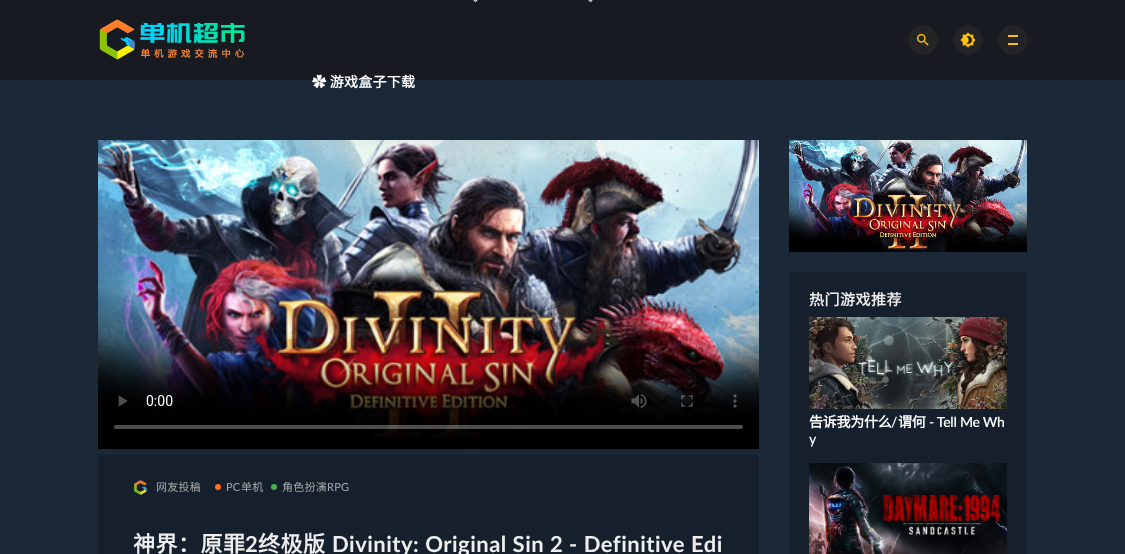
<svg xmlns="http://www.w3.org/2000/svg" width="1125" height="554">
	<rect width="100%" height="100%" fill="#1B2838" />
	<rect x="0" y="0" width="1125" height="80" fill="#171A21" />
	<image x="99" y="19" width="146" height="41" href="assets/img1.png" />
	<circle cx="923" cy="40" r="15" fill="#232425" />
	<image x="917" y="34" width="12" height="12" href="assets/img2.png" />
	<circle cx="968" cy="40" r="15" fill="#232425" />
	<image x="960" y="32" width="16" height="16" href="assets/img3.png" />
	<circle cx="1013" cy="40" r="15" fill="#232425" />
	<rect x="1008" y="35" width="10" height="2" fill="#FFC107" />
	<rect x="1008" y="43" width="10" height="2" fill="#FFC107" />
	<image x="473" y="0" width="5" height="3" href="assets/img4.png" />
	<image x="588" y="0" width="5" height="3" href="assets/img4.png" />
	<text x="312" y="87" font-family="Noto Sans CJK SC" font-size="14" font-weight="700" letter-spacing="0.25" fill="#FFFFFF">✿ 游戏盒子下载</text>
	<image x="789" y="140" width="238" height="112" href="assets/img5.png" />
	<rect x="789" y="272" width="238" height="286" rx="4" fill="#16202C" />
	<text x="809" y="305" font-family="Noto Sans CJK SC" font-size="15" font-weight="700" letter-spacing="0.5" fill="#EEEEEE">热门游戏推荐</text>
	<image x="809" y="317" width="198" height="92" href="assets/img6.png" />
	<text x="809" y="427" font-family="Noto Sans CJK SC" font-size="14" font-weight="700" letter-spacing="-0.25" fill="#FFFFFF">告诉我为什么</text>
	<text x="891" y="427" font-family="Lato" font-size="14" font-weight="600" letter-spacing="-0.25" fill="#FFFFFF">/</text>
	<text x="898" y="427" font-family="Noto Sans CJK SC" font-size="14" font-weight="700" letter-spacing="-0.25" fill="#FFFFFF">谓何</text>
	<g font-family="Lato" font-size="14" font-weight="600" letter-spacing="-0.25" fill="#FFFFFF">
		<text x="929" y="427">- Tell Me Wh</text>
		<text x="809" y="444">y</text>
	</g>
	<image x="809" y="463" width="198" height="91" href="assets/img7.png" />
	<rect x="98" y="437" width="661" height="12" fill="#000000" />
	<image x="98" y="140" width="661" height="297" href="assets/img8.png" />
	<rect x="98" y="455" width="661" height="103" rx="4" fill="#16202C" />
	<image x="133" y="480" width="15" height="15" href="assets/img9.png" />
	<text x="156" y="491" font-family="Noto Sans CJK SC" font-size="11" letter-spacing="0.25" fill="#AAAAAA">网友投稿</text>
	<circle cx="218" cy="487" r="3" fill="#FD721F" />
	<text x="226" y="491" font-family="Lato" font-size="11" letter-spacing="0.25" fill="#AAAAAA">PC</text>
	<text x="241" y="491" font-family="Noto Sans CJK SC" font-size="11" letter-spacing="0.25" fill="#AAAAAA">单机</text>
	<circle cx="274" cy="487" r="3" fill="#4CAF50" />
	<text x="282" y="491" font-family="Noto Sans CJK SC" font-size="11" letter-spacing="0.25" fill="#AAAAAA">角色扮演</text>
	<text x="327" y="491" font-family="Lato" font-size="11" letter-spacing="0.25" fill="#AAAAAA">RPG</text>
	<text x="133" y="552" font-family="Noto Sans CJK SC" font-size="22" font-weight="700" letter-spacing="0.5" fill="#EEEEEE">神界：原罪</text>
	<text x="245" y="552" font-family="Lato" font-size="22" font-weight="700" letter-spacing="0.5" fill="#EEEEEE">2</text>
	<text x="258" y="552" font-family="Noto Sans CJK SC" font-size="22" font-weight="700" letter-spacing="0.5" fill="#EEEEEE">终极版</text>
	<text x="332" y="552" font-family="Lato" font-size="22" font-weight="700" letter-spacing="0.5" fill="#EEEEEE">Divinity: Original Sin 2 - Definitive Edi</text>
</svg>
